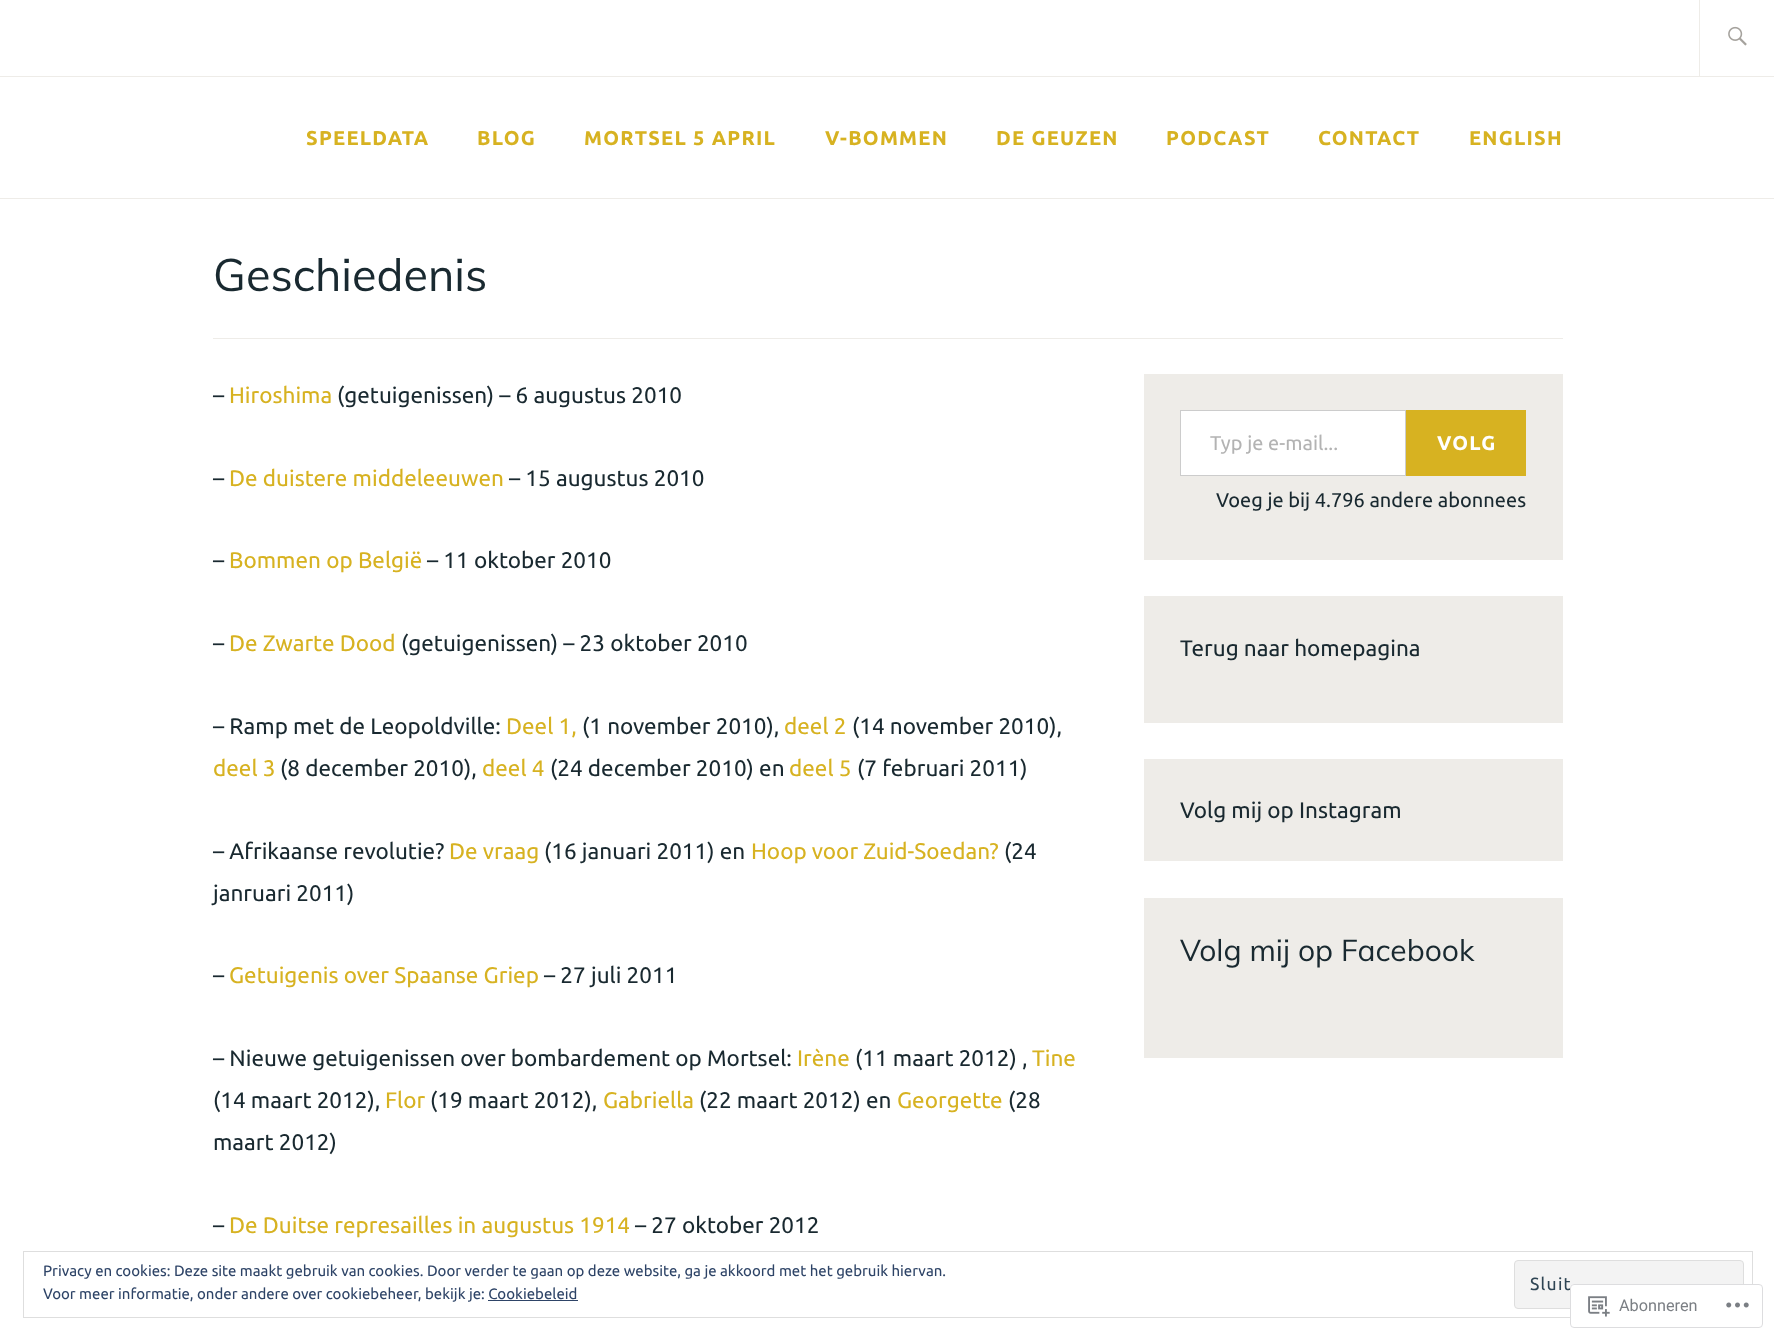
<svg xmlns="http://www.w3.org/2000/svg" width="1774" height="1339">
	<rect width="100%" height="100%" fill="#FFFFFF" />
	<rect x="0" y="198" width="1774" height="1" fill="#EEECE8" />
	<rect x="0" y="76" width="1774" height="1" fill="#EEECE8" />
	<rect x="1699" y="0" width="1" height="76" fill="#EEECE8" />
	<image x="1728" y="26" width="19" height="20" href="assets/img1.png" />
	<g font-family="Ubuntu" font-size="20" font-weight="700" letter-spacing="1.25" fill="#D7B221">
		<text x="306" y="145">SPEELDATA</text>
		<text x="477" y="145">BLOG</text>
		<text x="584" y="145">MORTSEL 5 APRIL</text>
		<text x="825" y="145">V-BOMMEN</text>
		<text x="996" y="145">DE GEUZEN</text>
		<text x="1166" y="145">PODCAST</text>
		<text x="1318" y="145">CONTACT</text>
		<text x="1469" y="145">ENGLISH</text>
	</g>
	<rect x="213" y="338" width="1350" height="1" fill="#EEECE8" />
	<text x="213" y="291" font-family="Muli" font-size="45" fill="#192930">Geschiedenis</text>
	<text x="213" y="403" font-family="Ubuntu" font-size="22.5" fill="#192930">–</text>
	<text x="229" y="403" font-family="Ubuntu" font-size="22.5" fill="#D7B221">Hiroshima</text>
	<g font-family="Ubuntu" font-size="22.5" fill="#192930">
		<text x="337" y="403">(getuigenissen) – 6 augustus 2010</text>
		<text x="213" y="486">–</text>
	</g>
	<text x="229" y="486" font-family="Ubuntu" font-size="22.5" fill="#D7B221">De duistere middeleeuwen</text>
	<g font-family="Ubuntu" font-size="22.5" fill="#192930">
		<text x="509" y="486">– 15 augustus 2010</text>
		<text x="213" y="568">–</text>
	</g>
	<text x="229" y="568" font-family="Ubuntu" font-size="22.5" fill="#D7B221">Bommen op België</text>
	<g font-family="Ubuntu" font-size="22.5" fill="#192930">
		<text x="427" y="568">– 11 oktober 2010</text>
		<text x="213" y="651">–</text>
	</g>
	<text x="229" y="651" font-family="Ubuntu" font-size="22.5" fill="#D7B221">De Zwarte Dood</text>
	<g font-family="Ubuntu" font-size="22.5" fill="#192930">
		<text x="401" y="651">(getuigenissen) – 23 oktober 2010</text>
		<text x="213" y="734">– Ramp met de Leopoldville:</text>
	</g>
	<text x="506" y="734" font-family="Ubuntu" font-size="22.5" fill="#D7B221">Deel 1,</text>
	<text x="582" y="734" font-family="Ubuntu" font-size="22.5" fill="#192930">(1 november 2010),</text>
	<text x="784" y="734" font-family="Ubuntu" font-size="22.5" fill="#D7B221">deel 2</text>
	<text x="852" y="734" font-family="Ubuntu" font-size="22.5" fill="#192930">(14 november 2010),</text>
	<text x="213" y="776" font-family="Ubuntu" font-size="22.5" fill="#D7B221">deel 3</text>
	<text x="280" y="776" font-family="Ubuntu" font-size="22.5" fill="#192930">(8 december 2010),</text>
	<text x="482" y="776" font-family="Ubuntu" font-size="22.5" fill="#D7B221">deel 4</text>
	<text x="550" y="776" font-family="Ubuntu" font-size="22.5" fill="#192930">(24 december 2010) en</text>
	<text x="789" y="776" font-family="Ubuntu" font-size="22.5" fill="#D7B221">deel 5</text>
	<g font-family="Ubuntu" font-size="22.5" fill="#192930">
		<text x="857" y="776">(7 februari 2011)</text>
		<text x="213" y="859">– Afrikaanse revolutie?</text>
	</g>
	<text x="449" y="859" font-family="Ubuntu" font-size="22.5" fill="#D7B221">De vraag</text>
	<text x="544" y="859" font-family="Ubuntu" font-size="22.5" fill="#192930">(16 januari 2011) en</text>
	<text x="751" y="859" font-family="Ubuntu" font-size="22.5" fill="#D7B221">Hoop voor Zuid-Soedan?</text>
	<g font-family="Ubuntu" font-size="22.5" fill="#192930">
		<text x="1004" y="859">(24</text>
		<text x="213" y="901">janruari 2011)</text>
		<text x="213" y="983">–</text>
	</g>
	<text x="229" y="983" font-family="Ubuntu" font-size="22.5" fill="#D7B221">Getuigenis over Spaanse Griep</text>
	<g font-family="Ubuntu" font-size="22.5" fill="#192930">
		<text x="544" y="983">– 27 juli 2011</text>
		<text x="213" y="1066">– Nieuwe getuigenissen over bombardement op Mortsel:</text>
	</g>
	<text x="797" y="1066" font-family="Ubuntu" font-size="22.5" fill="#D7B221">Irène</text>
	<text x="855" y="1066" font-family="Ubuntu" font-size="22.5" fill="#192930">(11 maart 2012) ,</text>
	<text x="1032" y="1066" font-family="Ubuntu" font-size="22.5" fill="#D7B221">Tine</text>
	<text x="213" y="1108" font-family="Ubuntu" font-size="22.5" fill="#192930">(14 maart 2012),</text>
	<text x="385" y="1108" font-family="Ubuntu" font-size="22.5" fill="#D7B221">Flor</text>
	<text x="430" y="1108" font-family="Ubuntu" font-size="22.5" fill="#192930">(19 maart 2012),</text>
	<text x="603" y="1108" font-family="Ubuntu" font-size="22.5" fill="#D7B221">Gabriella</text>
	<text x="699" y="1108" font-family="Ubuntu" font-size="22.5" fill="#192930">(22 maart 2012) en</text>
	<text x="897" y="1108" font-family="Ubuntu" font-size="22.5" fill="#D7B221">Georgette</text>
	<g font-family="Ubuntu" font-size="22.5" fill="#192930">
		<text x="1008" y="1108">(28</text>
		<text x="213" y="1150">maart 2012)</text>
		<text x="213" y="1233">–</text>
	</g>
	<text x="229" y="1233" font-family="Ubuntu" font-size="22.5" fill="#D7B221">De Duitse represailles in augustus 1914</text>
	<text x="635" y="1233" font-family="Ubuntu" font-size="22.5" fill="#192930">– 27 oktober 2012</text>
	<rect x="1144" y="374" width="419" height="186" fill="#EEECE8" />
	<rect x="1180.5" y="410.5" width="225" height="65" fill="#FFFFFF" stroke="#CCCCCC" />
	<text x="1210" y="450" font-family="Ubuntu" font-size="20" fill="#B3B3B3">Typ je e-mail...</text>
	<rect x="1406" y="410" width="120" height="66" fill="#D7B221" />
	<text x="1437" y="450" font-family="Ubuntu" font-size="20" font-weight="700" letter-spacing="1.25" fill="#FFFFFF">VOLG</text>
	<text x="1216" y="507" font-family="Ubuntu" font-size="20" fill="#192930">Voeg je bij 4.796 andere abonnees</text>
	<rect x="1144" y="596" width="419" height="127" fill="#EEECE8" />
	<text x="1180" y="656" font-family="Ubuntu" font-size="22.5" fill="#192930">Terug naar homepagina</text>
	<rect x="1144" y="759" width="419" height="102" fill="#EEECE8" />
	<text x="1180" y="818" font-family="Ubuntu" font-size="22.5" fill="#192930">Volg mij op Instagram</text>
	<rect x="1144" y="898" width="419" height="160" fill="#EEECE8" />
	<text x="1180" y="961" font-family="Muli" font-size="30" fill="#192930">Volg mij op Facebook</text>
	<rect x="23.5" y="1251.5" width="1729" height="66" fill="none" stroke="#DEDEDE" />
	<text x="43" y="1276" font-family="Ubuntu" font-size="15" fill="#2E4467">Privacy en cookies: Deze site maakt gebruik van cookies. Door verder te gaan op deze website, ga je akkoord met het gebruik hiervan.</text>
	<rect x="1514.5" y="1260.5" width="229" height="48" rx="3.5" fill="#F3F3F3" stroke="#DEDEDE" />
	<text x="1530" y="1290" font-family="Ubuntu" font-size="17.5" letter-spacing="1.25" fill="#2E4453">Sluit</text>
	<text x="43" y="1299" font-family="Ubuntu" font-size="15" fill="#2E4467">Voor meer informatie, onder andere over cookiebeheer, bekijk je: Cookiebeleid</text>
	<rect x="488" y="1300" width="90" height="1" fill="#2E4467" />
	<rect x="1570" y="1284" width="193" height="44" rx="4" fill="#FFFFFF" fill-opacity="0.98" />
	<rect x="1570.5" y="1284.5" width="192" height="43" rx="3.5" fill="none" stroke="#DCDCDE" stroke-opacity="0.98" />
	<image x="1588" y="1296" width="22" height="21" href="assets/img2.png" />
	<text x="1619" y="1311" font-family="Roboto" font-size="16.25" fill="#7B7F84">Abonneren</text>
	<image x="1726" y="1302" width="23" height="6" href="assets/img3.png" />
</svg>
